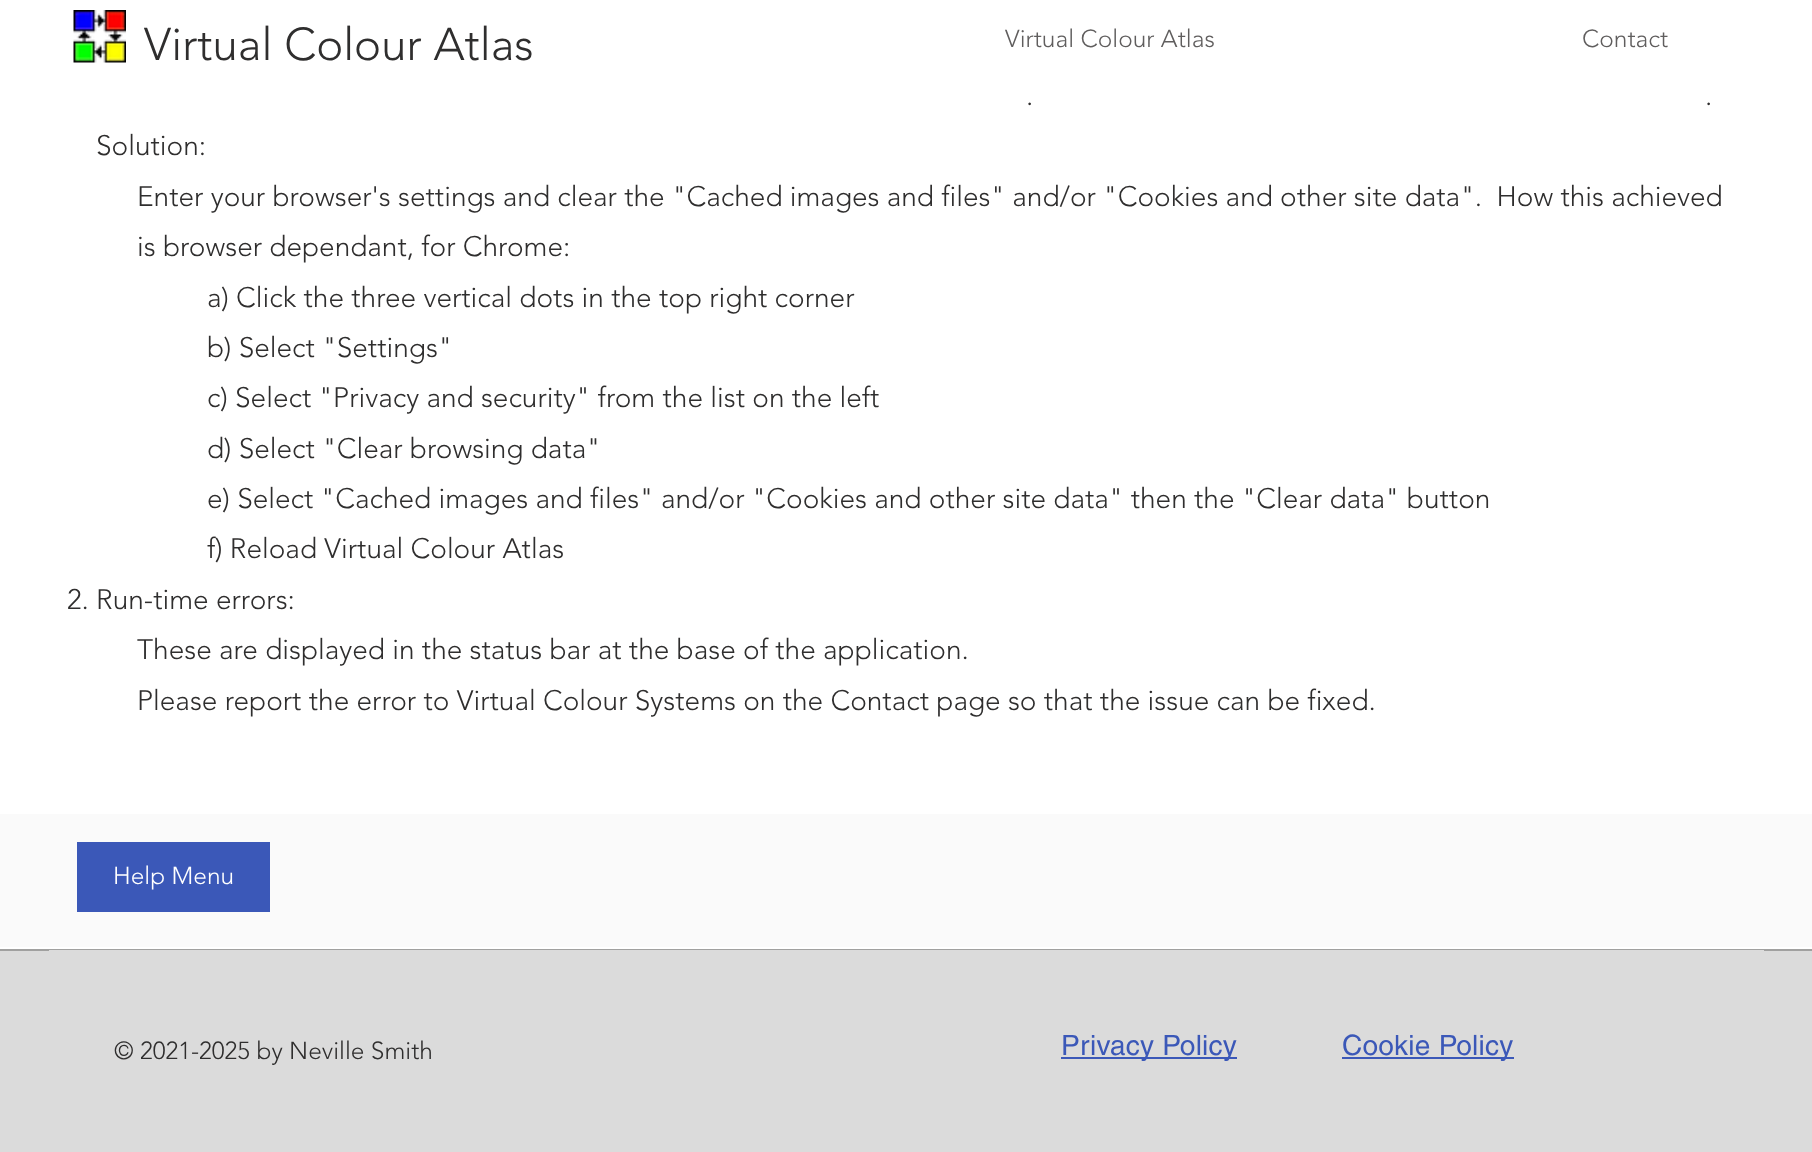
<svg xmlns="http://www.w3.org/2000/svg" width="1812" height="1152">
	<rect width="100%" height="100%" fill="#FFFFFF" />
	<image x="73" y="10" width="53" height="53" href="assets/img1.png" />
	<text x="144" y="60" font-family="'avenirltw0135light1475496'" font-size="45.5" font-weight="300" fill="#2F2E2E">Virtual Colour Atlas</text>
	<g font-family="'avenirltw0135light1475496'" font-size="24.5" font-weight="300" fill="#605E5E">
		<text x="1005" y="47">Virtual Colour Atlas</text>
		<text x="1582" y="47">Contact</text>
	</g>
	<g font-family="'avenirltw0135light1475496'" font-size="28" font-weight="300" fill="#2F2E2E">
		<text x="1026" y="105">.</text>
		<text x="1705" y="105">.</text>
		<text x="96" y="155">Solution:</text>
		<text x="137" y="206" xml:space="preserve">Enter your browser's settings and clear the "Cached images and files" and/or "Cookies and other site data".  How this achieved</text>
		<text x="137" y="256">is browser dependant, for Chrome:</text>
		<text x="207" y="307">a) Click the three vertical dots in the top right corner</text>
		<text x="207" y="357">b) Select "Settings"</text>
		<text x="207" y="407">c) Select "Privacy and security" from the list on the left</text>
		<text x="207" y="458">d) Select "Clear browsing data"</text>
		<text x="207" y="508">e) Select "Cached images and files" and/or "Cookies and other site data" then the "Clear data" button</text>
		<text x="207" y="558">f) Reload Virtual Colour Atlas</text>
		<text x="67" y="609">2. Run-time errors:</text>
		<text x="137" y="659">These are displayed in the status bar at the base of the application.</text>
		<text x="137" y="710">Please report the error to Virtual Colour Systems on the Contact page so that the issue can be fixed.</text>
	</g>
	<rect x="0" y="814" width="1812" height="133" fill="#FAFAFA" />
	<rect x="77" y="842" width="193" height="70" fill="#3B58B8" />
	<text x="113" y="884" font-family="'avenirltw0135light1475496'" font-size="24.5" font-weight="300" fill="#FFFFFF">Help Menu</text>
	<rect x="0" y="951" width="1812" height="201" fill="#DBDBDB" />
	<rect x="0" y="949" width="1812" height="2" fill="#A0A09F" />
	<rect x="49" y="950" width="1715" height="1" fill="#DBDBDB" />
	<text x="114" y="1059" font-family="'avenirltw0135light1475496'" font-size="24.5" font-weight="300" fill="#2F2E2E">© 2021-2025 by Neville Smith</text>
	<rect x="1061" y="1057" width="176" height="2" fill="#3B58B8" />
	<text x="1061" y="1055" font-family="helvetica" font-size="28" letter-spacing="0.25" fill="#3B58B8">Privacy Policy</text>
	<rect x="1342" y="1057" width="172" height="2" fill="#3B58B8" />
	<text x="1342" y="1055" font-family="helvetica" font-size="28" letter-spacing="0.25" fill="#3B58B8">Cookie Policy</text>
</svg>
